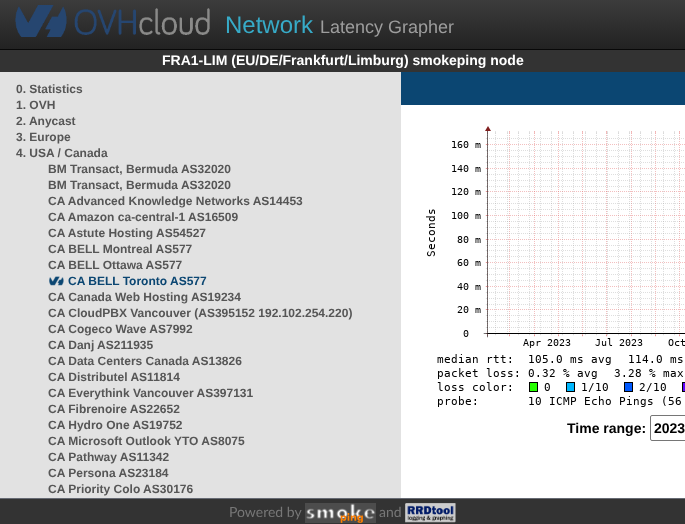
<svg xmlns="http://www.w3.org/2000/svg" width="685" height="524">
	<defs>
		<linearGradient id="g1" gradientUnits="userSpaceOnUse" x1="343" y1="0" x2="343" y2="49"><stop offset="0" stop-color="#3C3C3C" /><stop offset="1" stop-color="#222222" /></linearGradient>
	</defs>
	<rect width="100%" height="100%" fill="#FFFFFF" />
	<rect x="0" y="0" width="685" height="49" fill="url(#g1)" />
	<rect x="0" y="49" width="685" height="1" fill="#080808" />
	<image x="15" y="5" width="195" height="32" href="assets/img1.png" />
	<text x="225" y="33" font-family="Liberation Sans" font-size="24" fill="#37ABC8">Network</text>
	<text x="320" y="33" font-family="Liberation Sans" font-size="18" fill="#9D9D9D">Latency Grapher</text>
	<rect x="0" y="50" width="685" height="22" fill="#333333" />
	<text x="162" y="65" font-family="Liberation Sans" font-size="14" font-weight="700" fill="#FFFFFF">FRA1-LIM (EU/DE/Frankfurt/Limburg) smokeping node</text>
	<rect x="0" y="72" width="401" height="426" fill="#E2E2E2" />
	<g font-family="Liberation Sans" font-size="12" font-weight="700" fill="#565656">
		<text x="16" y="93">0. Statistics</text>
		<text x="16" y="109">1. OVH</text>
		<text x="16" y="125">2. Anycast</text>
		<text x="16" y="141">3. Europe</text>
		<text x="16" y="157">4. USA / Canada</text>
		<text x="48" y="173">BM Transact, Bermuda AS32020</text>
		<text x="48" y="189">BM Transact, Bermuda AS32020</text>
		<text x="48" y="205">CA Advanced Knowledge Networks AS14453</text>
		<text x="48" y="221">CA Amazon ca-central-1 AS16509</text>
		<text x="48" y="237">CA Astute Hosting AS54527</text>
		<text x="48" y="253">CA BELL Montreal AS577</text>
		<text x="48" y="269">CA BELL Ottawa AS577</text>
	</g>
	<image x="49" y="276" width="15" height="10" href="assets/img2.png" />
	<text x="68" y="285" font-family="Liberation Sans" font-size="12" font-weight="700" fill="#0B4672">CA BELL Toronto AS577</text>
	<g font-family="Liberation Sans" font-size="12" font-weight="700" fill="#565656">
		<text x="48" y="301">CA Canada Web Hosting AS19234</text>
		<text x="48" y="317">CA CloudPBX Vancouver (AS395152 192.102.254.220)</text>
		<text x="48" y="333">CA Cogeco Wave AS7992</text>
		<text x="48" y="349">CA Danj AS211935</text>
		<text x="48" y="365">CA Data Centers Canada AS13826</text>
		<text x="48" y="381">CA Distributel AS11814</text>
		<text x="48" y="397">CA Everythink Vancouver AS397131</text>
		<text x="48" y="413">CA Fibrenoire AS22652</text>
		<text x="48" y="429">CA Hydro One AS19752</text>
		<text x="48" y="445">CA Microsoft Outlook YTO AS8075</text>
		<text x="48" y="461">CA Pathway AS11342</text>
		<text x="48" y="477">CA Persona AS23184</text>
		<text x="48" y="493">CA Priority Colo AS30176</text>
	</g>
	<rect x="401" y="72" width="284" height="33" fill="#0B4672" />
	<image x="426" y="126" width="259" height="281" href="assets/img3.png" />
	<text x="567" y="433" font-family="Liberation Sans" font-size="14" font-weight="700" fill="#000000">Time range:</text>
	<rect x="650.5" y="415.5" width="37" height="25" rx="1.5" fill="none" stroke="#767676" />
	<text x="654" y="433" font-family="Liberation Sans" font-size="14" font-weight="700" fill="#000000">2023</text>
	<rect x="0" y="499" width="685" height="25" fill="#333333" />
	<rect x="0" y="498" width="685" height="1" fill="#666A73" />
	<text x="229" y="517" font-family="Lato" font-size="14" fill="#777777">Powered by</text>
	<image x="305" y="503" width="71" height="20" href="assets/img4.png" />
	<text x="379" y="517" font-family="Lato" font-size="14" fill="#777777">and</text>
	<image x="405" y="503" width="51" height="20" href="assets/img5.png" />
</svg>
